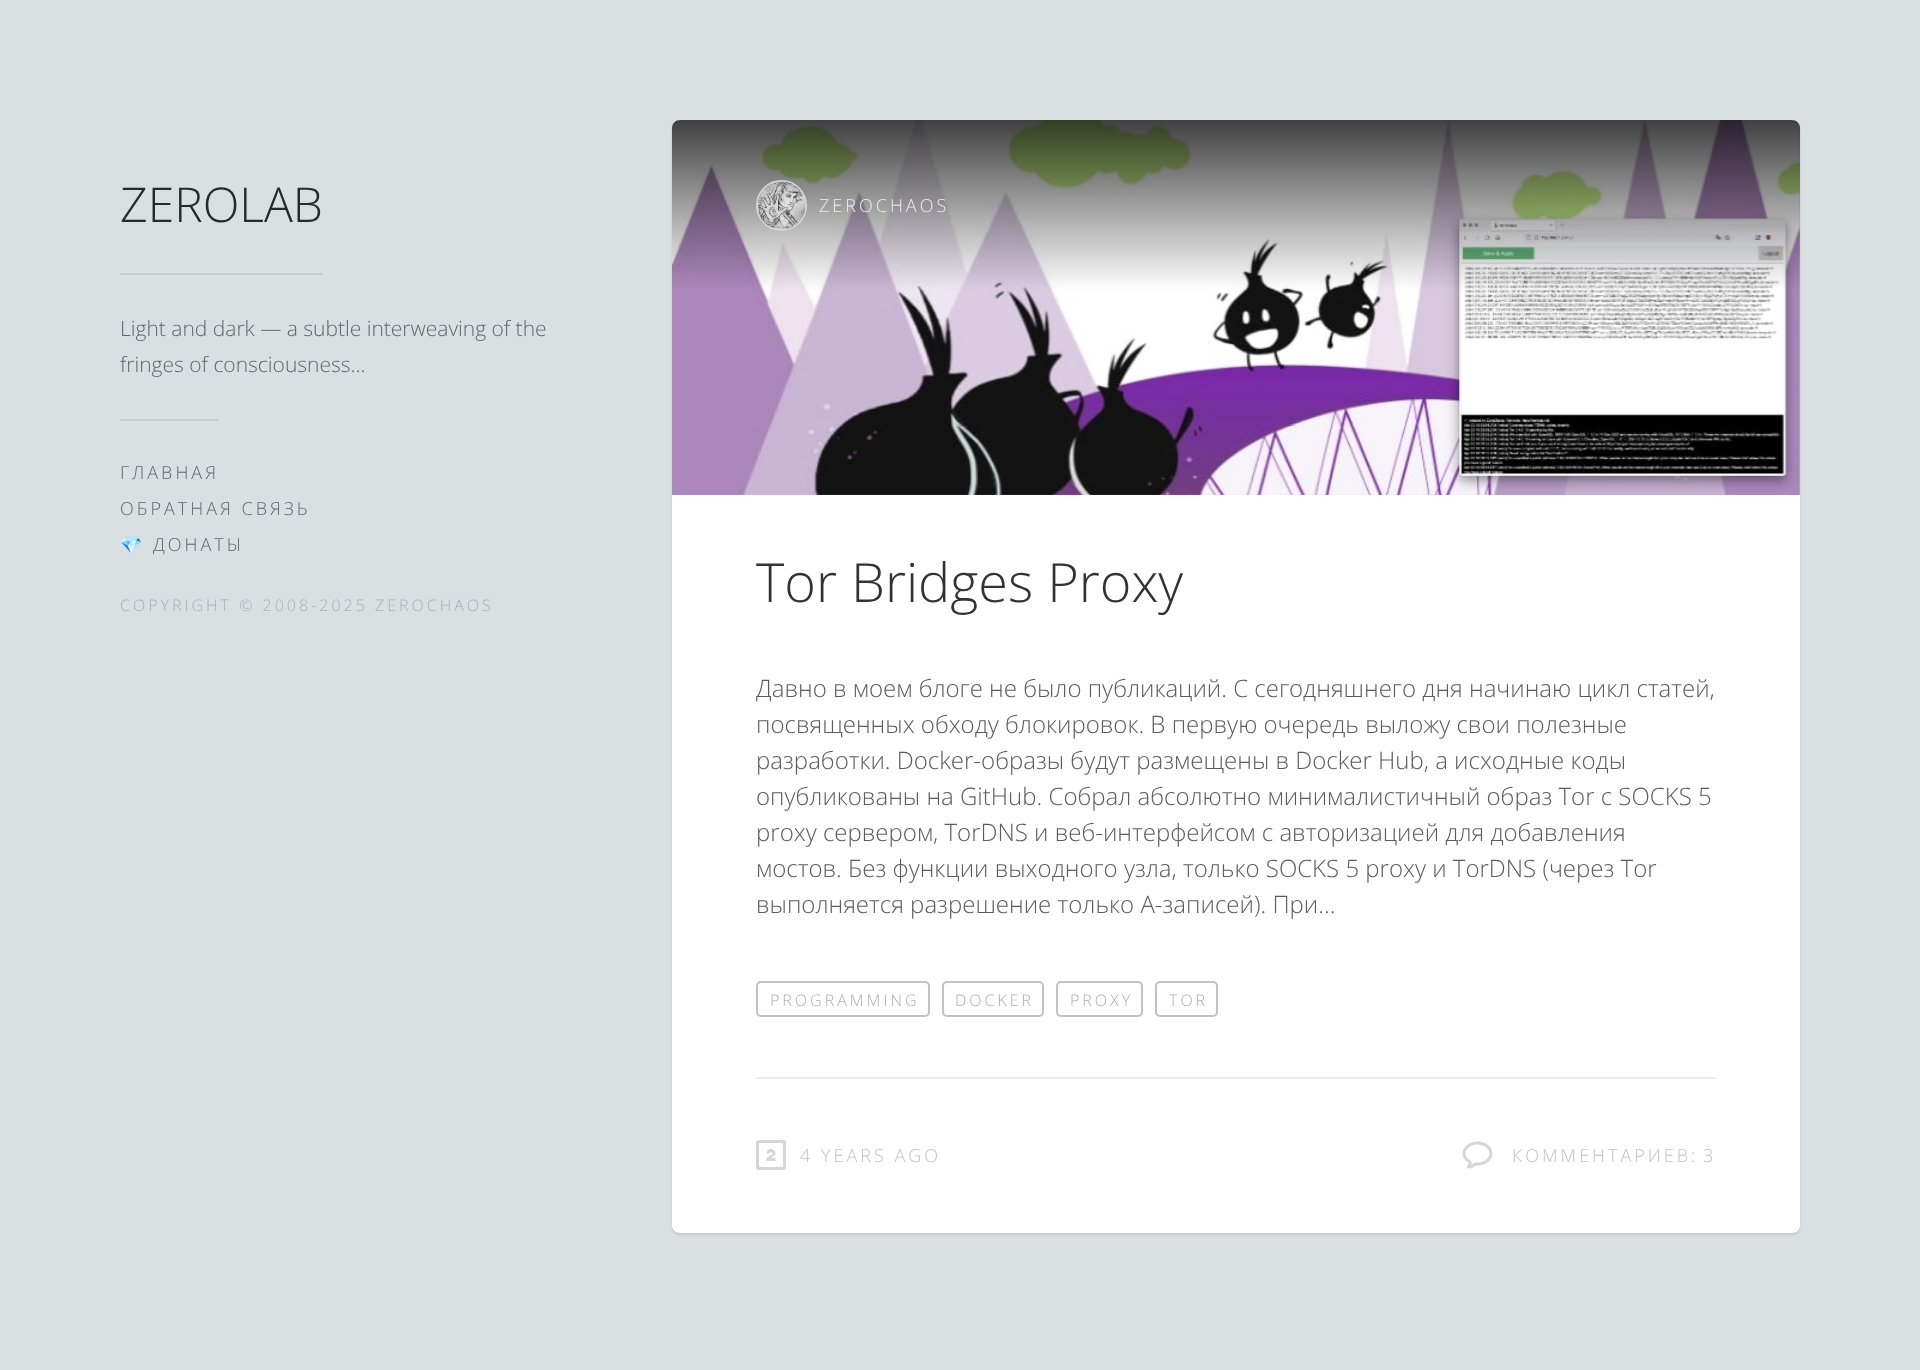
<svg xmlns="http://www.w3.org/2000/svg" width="1920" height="1370">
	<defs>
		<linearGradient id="g1" gradientUnits="userSpaceOnUse" x1="1236" y1="120" x2="1236" y2="291"><stop offset="0" stop-color="#000000" stop-opacity="0.75" /><stop offset="1" stop-color="#000000" stop-opacity="0" /></linearGradient>
	</defs>
	<rect width="100%" height="100%" fill="#DADFE1" />
	<rect x="120" y="273" width="203" height="2" fill="#C7CED1" />
	<text x="120" y="222" font-family="Open Sans" font-size="48" font-weight="300" fill="#252B2D">ZEROLAB</text>
	<g font-family="Open Sans" font-size="21" font-weight="300" fill="#5C6A70">
		<text x="120" y="336">Light and dark — a subtle interweaving of the</text>
		<text x="120" y="372">fringes of consciousness…</text>
	</g>
	<rect x="120" y="419" width="99" height="2" fill="#C7CED1" />
	<g font-family="Open Sans" font-size="18" font-weight="300" letter-spacing="3" fill="#5C6A70">
		<text x="120" y="479">ГЛАВНАЯ</text>
		<text x="120" y="515">ОБРАТНАЯ СВЯЗЬ</text>
	</g>
	<text x="120" y="551" font-family="Noto Color Emoji" font-size="18" letter-spacing="3" fill="#5C6A70">💎</text>
	<text x="153" y="551" font-family="Open Sans" font-size="18" font-weight="300" letter-spacing="3" fill="#5C6A70">ДОНАТЫ</text>
	<text x="120" y="611" font-family="Open Sans" font-size="16" font-weight="300" letter-spacing="3" fill="#A5B1B6">COPYRIGHT © 2008-2025 ZEROCHAOS</text>
	<rect x="672" y="122" width="1128" height="1113" rx="8" fill="#000000" fill-opacity="0.1" filter="blur(1px)" />
	<image x="672" y="120" width="1128" height="375" href="assets/img1.png" />
	<path d="M680 120H1792C1796.5 120 1800 123.5 1800 128V291H672V128C672 123.5 675.5 120 680 120Z" fill="url(#g1)" />
	<circle cx="781.5" cy="205.5" r="24.5" fill="none" stroke="#D6D6D6" stroke-width="2" />
	<image x="757" y="181" width="49" height="49" href="assets/img2.png" />
	<text x="819" y="212" font-family="Open Sans" font-size="18" font-weight="300" letter-spacing="3" fill="#EBEBEB">ZEROCHAOS</text>
	<rect x="672" y="495" width="1128" height="582" fill="#FFFFFF" />
	<text x="756" y="602" font-family="Open Sans" font-size="54" font-weight="300" fill="#333333">Tor Bridges Proxy</text>
	<g font-family="Open Sans" font-size="24" font-weight="300" fill="#5C5C5C">
		<text x="756" y="697">Давно в моем блоге не было публикаций. С сегодняшнего дня начинаю цикл статей,</text>
		<text x="756" y="733">посвященных обходу блокировок. В первую очередь выложу свои полезные</text>
		<text x="756" y="769">разработки. Docker-образы будут размещены в Docker Hub, а исходные коды</text>
		<text x="756" y="805">опубликованы на GitHub. Собрал абсолютно минималистичный образ Tor с SOCKS 5</text>
		<text x="756" y="841">proxy сервером, TorDNS и веб-интерфейсом с авторизацией для добавления</text>
		<text x="756" y="877">мостов. Без функции выходного узла, только SOCKS 5 proxy и TorDNS (через Tor</text>
		<text x="756" y="913">выполняется разрешение только A-записей). При...</text>
	</g>
	<rect x="757" y="982" width="172" height="34" rx="4" fill="none" stroke="#C2C2C2" stroke-width="2" />
	<text x="770" y="1006" font-family="Open Sans" font-size="16" font-weight="300" letter-spacing="3" fill="#ADADAD">PROGRAMMING</text>
	<rect x="943" y="982" width="100" height="34" rx="4" fill="none" stroke="#C2C2C2" stroke-width="2" />
	<text x="955" y="1006" font-family="Open Sans" font-size="16" font-weight="300" letter-spacing="3" fill="#ADADAD">DOCKER</text>
	<rect x="1057" y="982" width="85" height="34" rx="4" fill="none" stroke="#C2C2C2" stroke-width="2" />
	<text x="1070" y="1006" font-family="Open Sans" font-size="16" font-weight="300" letter-spacing="3" fill="#ADADAD">PROXY</text>
	<rect x="1156" y="982" width="61" height="34" rx="4" fill="none" stroke="#C2C2C2" stroke-width="2" />
	<text x="1169" y="1006" font-family="Open Sans" font-size="16" font-weight="300" letter-spacing="3" fill="#ADADAD">TOR</text>
	<path d="M672 1077H1800V1225C1800 1229.5 1796.5 1233 1792 1233H680C675.5 1233 672 1229.5 672 1225Z" fill="#FFFFFF" />
	<rect x="756" y="1077" width="960" height="2" fill="#EBEBEB" />
	<image x="756" y="1140" width="30" height="30" href="assets/img3.png" />
	<text x="800" y="1162" font-family="Open Sans" font-size="18" font-weight="300" letter-spacing="3" fill="#C2C2C2">4 YEARS AGO</text>
	<image x="1462" y="1141" width="31" height="28" href="assets/img4.png" />
	<g font-family="Open Sans" font-size="18" font-weight="300" letter-spacing="3" fill="#C2C2C2">
		<text x="1512" y="1162">КОММЕНТАРИЕВ:</text>
		<text x="1703" y="1162">3</text>
	</g>
</svg>
